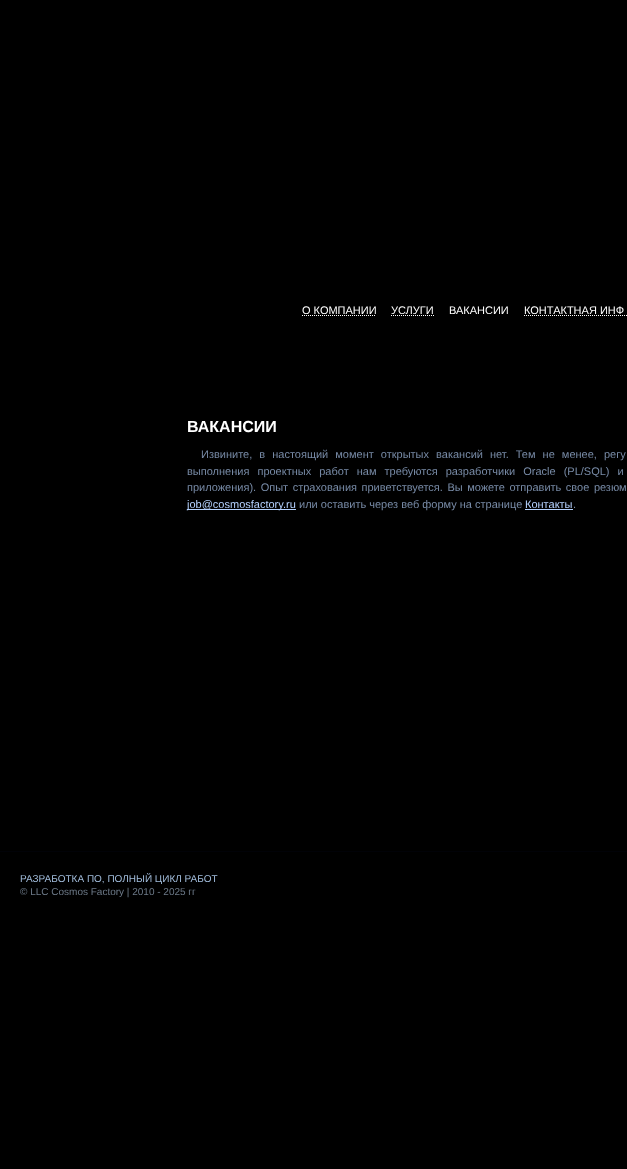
<svg xmlns="http://www.w3.org/2000/svg" width="627" height="1169">
	<rect width="100%" height="100%" fill="#000000" />
	<image x="302" y="315" width="73" height="1" href="assets/img1.png" />
	<text x="302" y="314" font-family="Liberation Sans" font-size="11" fill="#FFFFFF">О КОМПАНИИ</text>
	<image x="391" y="315" width="43" height="1" href="assets/img2.png" />
	<g font-family="Liberation Sans" font-size="11" fill="#FFFFFF">
		<text x="391" y="314">УСЛУГИ</text>
		<text x="449" y="314">ВАКАНСИИ</text>
	</g>
	<image x="524" y="315" width="103" height="1" href="assets/img3.png" />
	<text x="524" y="314" font-family="Liberation Sans" font-size="11" fill="#FFFFFF">КОНТАКТНАЯ ИНФ</text>
	<text x="187" y="432" font-family="Liberation Sans" font-size="16" font-weight="700" fill="#FFFFFF">ВАКАНСИИ</text>
	<g font-family="Liberation Sans" font-size="11" fill="#788BA7">
		<text x="201" y="458" word-spacing="4">Извините, в настоящий момент открытых вакансий нет. Тем не менее, регу</text>
		<text x="187" y="475" word-spacing="5">выполнения проектных работ нам требуются разработчики Oracle (PL/SQL) и</text>
		<text x="187" y="491" word-spacing="1.5">приложения). Опыт страхования приветствуется. Вы можете отправить свое резюм</text>
	</g>
	<rect x="187" y="509" width="109" height="1" fill="#B5D2FF" />
	<text x="187" y="508" font-family="Liberation Sans" font-size="11" fill="#B5D2FF">job@cosmosfactory.ru</text>
	<text x="299" y="508" font-family="Liberation Sans" font-size="11" fill="#788BA7">или оставить через веб форму на странице</text>
	<text x="525" y="508" font-family="Liberation Sans" font-size="11" fill="#B5D2FF">Контакты</text>
	<rect x="525" y="509" width="48" height="1" fill="#B5D2FF" />
	<text x="573" y="508" font-family="Liberation Sans" font-size="11" fill="#788BA7">.</text>
	<rect x="0" y="851" width="627" height="1" fill="#010207" />
	<text x="20" y="882" font-family="Liberation Sans" font-size="10" fill="#A1BCDB">РАЗРАБОТКА ПО, ПОЛНЫЙ ЦИКЛ РАБОТ</text>
	<text x="20" y="895" font-family="Liberation Sans" font-size="10" fill="#6D7A89">© LLC Cosmos Factory | 2010 - 2025 гг</text>
</svg>
